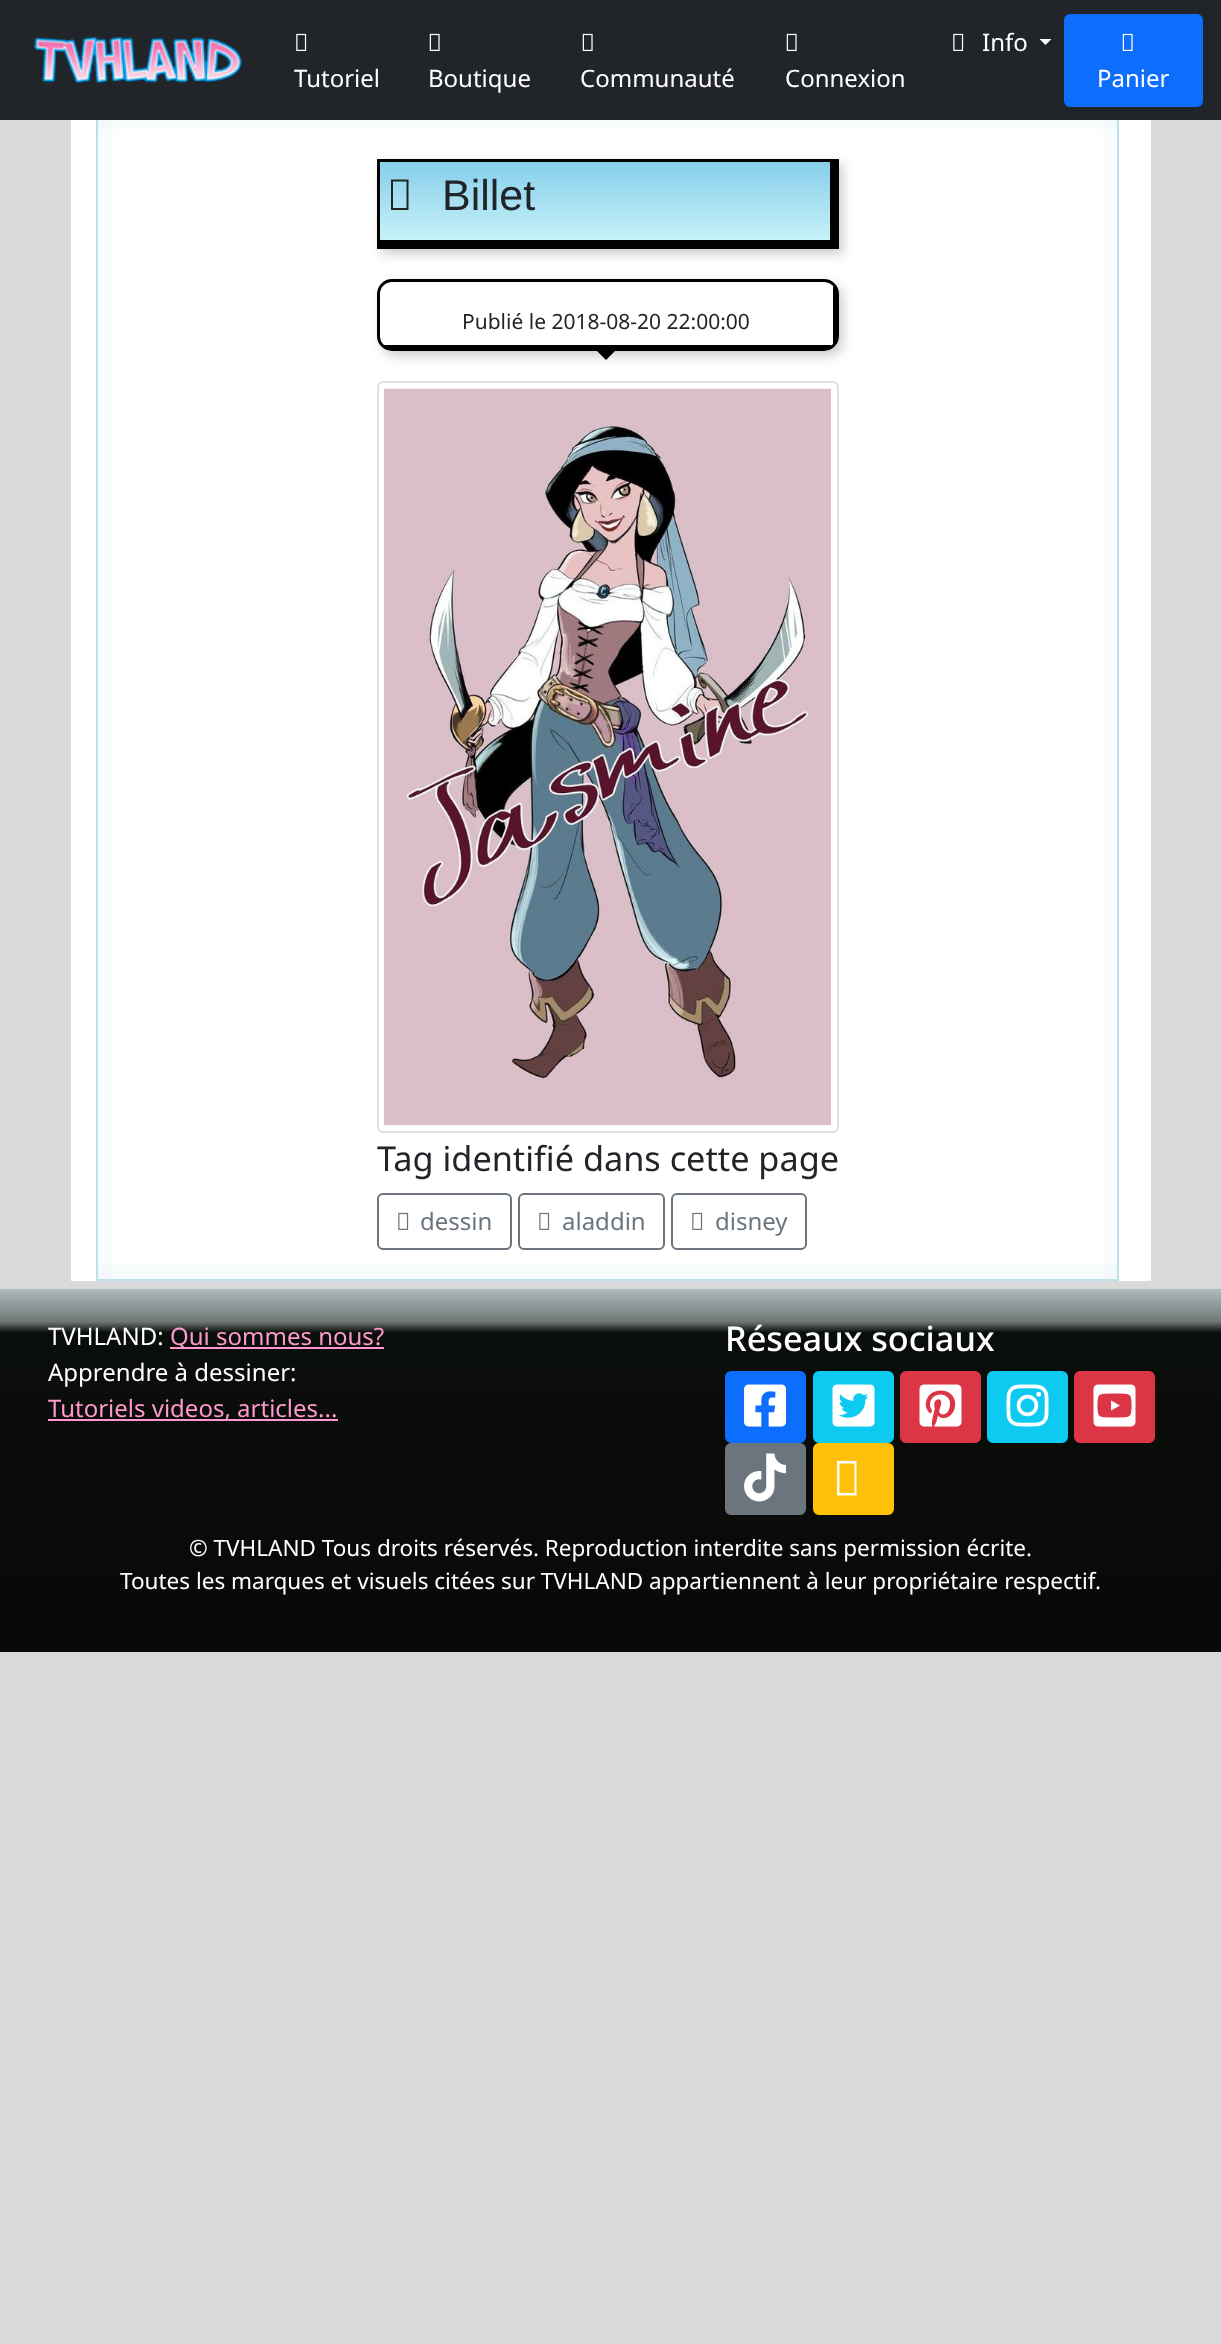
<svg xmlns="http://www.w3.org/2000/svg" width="1221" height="2344">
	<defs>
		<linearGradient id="g1" gradientUnits="userSpaceOnUse" x1="605" y1="162" x2="605" y2="240"><stop offset="0" stop-color="#87CEEB" /><stop offset="1" stop-color="#C6F2F8" /></linearGradient>
		<clipPath id="clip1"><path d="M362 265H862V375H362ZM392 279H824C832.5 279 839 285.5 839 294V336C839 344.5 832.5 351 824 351H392C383.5 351 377 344.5 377 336V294C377 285.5 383.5 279 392 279Z" clip-rule="evenodd" /></clipPath>
		<linearGradient id="g2" gradientUnits="userSpaceOnUse" x1="611" y1="1289" x2="611" y2="1652"><stop offset="0" stop-color="#AEBCBF" /><stop offset="0.09" stop-color="#6E7774" /><stop offset="0.12" stop-color="#0A0E0A" /><stop offset="1" stop-color="#0A0809" /></linearGradient>
	</defs>
	<rect width="100%" height="100%" fill="#D9D9D9" />
	<rect x="71" y="120" width="1080" height="1161" fill="#FFFFFF" />
	<rect x="97" y="114" width="1021" height="1166" fill="none" stroke="#BDE0EB" stroke-width="2" />
	<rect x="0" y="0" width="1221" height="120" fill="#212529" />
	<image x="34" y="36" width="208" height="47" href="assets/img1.png" />
	<image x="953" y="33" width="11" height="18" href="assets/img2.png" />
	<text x="982" y="51" font-family="Noto Sans" font-size="24" fill="#FFFFFF">Info</text>
	<path d="M1039.5 39H1051.5L1045.5 45Z" fill="#FFFFFF" />
	<image x="296" y="33" width="11" height="18" href="assets/img2.png" />
	<text x="294" y="87" font-family="Noto Sans" font-size="24" fill="#FFFFFF">Tutoriel</text>
	<image x="429" y="33" width="11" height="18" href="assets/img3.png" />
	<text x="428" y="87" font-family="Noto Sans" font-size="24" fill="#FFFFFF">Boutique</text>
	<image x="582" y="33" width="11" height="18" href="assets/img3.png" />
	<text x="580" y="87" font-family="Noto Sans" font-size="24" fill="#FFFFFF">Communauté</text>
	<image x="786" y="33" width="11" height="18" href="assets/img3.png" />
	<text x="785" y="87" font-family="Noto Sans" font-size="24" fill="#FFFFFF">Connexion</text>
	<rect x="1065" y="15" width="137" height="91" rx="5" fill="#0D6EFD" stroke="#0D6EFD" stroke-width="2" />
	<image x="1122" y="33" width="11" height="18" href="assets/img4.png" />
	<text x="1097" y="87" font-family="Noto Sans" font-size="24" fill="#FFFFFF">Panier</text>
	<rect x="98" y="120" width="1019" height="9" fill="#ADD8E6" fill-opacity="0.08" />
	<rect x="98" y="120" width="15" height="1159" fill="#ADD8E6" fill-opacity="0.08" />
	<rect x="381" y="164" width="462" height="90" fill="#000000" fill-opacity="0.2" filter="blur(6px)" />
	<rect x="380" y="162" width="450" height="78" fill="url(#g1)" />
	<rect x="377" y="159" width="453" height="3" fill="#000000" />
	<rect x="830" y="159" width="9" height="81" fill="#000000" />
	<rect x="380" y="240" width="459" height="9" fill="#000000" />
	<rect x="377" y="159" width="3" height="90" fill="#000000" />
	<path d="M391 210V179.5H408.5V210ZM393 208H406.5V181.5H393Z" fill="#212529" />
	<text x="442" y="210" font-family="Liberation Sans" font-size="43" fill="#212529">Billet</text>
	<g clip-path="url(#clip1)">
		<rect x="381" y="284" width="462" height="72" rx="15" fill="#000000" fill-opacity="0.2" filter="blur(6px)" />
	</g>
	<rect x="378.5" y="280.5" width="459" height="69" rx="13.5" fill="none" stroke="#000000" stroke-width="3" />
	<rect x="833" y="287" width="3" height="57" fill="#000000" />
	<rect x="384" y="345" width="447" height="3" fill="#000000" />
	<text x="462" y="329" font-family="Noto Sans" font-size="21" fill="#212529">Publié le 2018-08-20 22:00:00</text>
	<path d="M591 345H621L606 360Z" fill="#000000" />
	<rect x="378" y="382" width="460" height="750" rx="5" fill="none" stroke="#DEE2E6" stroke-width="2" />
	<image x="384" y="388" width="447" height="737" href="assets/img5.png" />
	<text x="377" y="1171" font-family="Noto Sans" font-size="34.25" fill="#212529">Tag identifié dans cette page</text>
	<rect x="378" y="1194" width="133" height="55" rx="5" fill="none" stroke="#6C757D" stroke-width="2" />
	<image x="398" y="1212" width="11" height="18" href="assets/img6.png" />
	<text x="420" y="1230" font-family="Noto Sans" font-size="24" fill="#6C757D">dessin</text>
	<rect x="519" y="1194" width="145" height="55" rx="5" fill="none" stroke="#6C757D" stroke-width="2" />
	<image x="539" y="1212" width="11" height="18" href="assets/img6.png" />
	<text x="562" y="1230" font-family="Noto Sans" font-size="24" fill="#6C757D">aladdin</text>
	<rect x="672" y="1194" width="134" height="55" rx="5" fill="none" stroke="#6C757D" stroke-width="2" />
	<image x="692" y="1212" width="11" height="18" href="assets/img6.png" />
	<text x="715" y="1230" font-family="Noto Sans" font-size="24" fill="#6C757D">disney</text>
	<rect x="1103" y="120" width="14" height="1159" fill="#ADD8E6" fill-opacity="0.08" />
	<rect x="98" y="1265" width="1019" height="14" fill="#ADD8E6" fill-opacity="0.08" />
	<rect x="0" y="1289" width="1221" height="363" fill="url(#g2)" />
	<text x="48" y="1345" font-family="Noto Sans" font-size="24" fill="#FFFFFF">TVHLAND:</text>
	<rect x="170" y="1347" width="214" height="2" fill="#FF99CC" />
	<text x="170" y="1345" font-family="Noto Sans" font-size="24" fill="#FF99CC">Qui sommes nous?</text>
	<text x="48" y="1381" font-family="Noto Sans" font-size="24" fill="#FFFFFF">Apprendre à dessiner:</text>
	<rect x="48" y="1419" width="290" height="2" fill="#FF99CC" />
	<text x="48" y="1417" font-family="Noto Sans" font-size="24" fill="#FF99CC">Tutoriels videos, articles...</text>
	<text x="725" y="1351" font-family="Noto Sans" font-size="34.25" font-weight="500" fill="#FFFFFF">Réseaux sociaux</text>
	<rect x="726" y="1372" width="79" height="70" rx="5" fill="#0D6EFD" stroke="#0D6EFD" stroke-width="2" />
	<image x="744" y="1384" width="42" height="43" href="assets/img7.png" />
	<rect x="814" y="1372" width="79" height="70" rx="5" fill="#0DCAF0" stroke="#0DCAF0" stroke-width="2" />
	<image x="832" y="1384" width="43" height="43" href="assets/img8.png" />
	<rect x="901" y="1372" width="79" height="70" rx="5" fill="#DC3545" stroke="#DC3545" stroke-width="2" />
	<image x="919" y="1384" width="43" height="43" href="assets/img9.png" />
	<rect x="988" y="1372" width="79" height="70" rx="5" fill="#0DCAF0" stroke="#0DCAF0" stroke-width="2" />
	<image x="1006" y="1384" width="43" height="43" href="assets/img10.png" />
	<rect x="1075" y="1372" width="79" height="70" rx="5" fill="#DC3545" stroke="#DC3545" stroke-width="2" />
	<image x="1093" y="1384" width="43" height="43" href="assets/img11.png" />
	<rect x="726" y="1444" width="79" height="70" rx="5" fill="#6C757D" stroke="#6C757D" stroke-width="2" />
	<image x="744" y="1453" width="42" height="49" href="assets/img12.png" />
	<rect x="814" y="1444" width="79" height="70" rx="5" fill="#FFC107" stroke="#FFC107" stroke-width="2" />
	<path d="M837 1495.5V1461H856.5V1495.5ZM839.5 1493H854.5V1463.5H839.5Z" fill="#FFFFFF" />
	<g font-family="Noto Sans" font-size="22.5" fill="#FFFFFF">
		<text x="189" y="1556">© TVHLAND Tous droits réservés. Reproduction interdite sans permission écrite.</text>
		<text x="120" y="1589">Toutes les marques et visuels citées sur TVHLAND appartiennent à leur propriétaire respectif.</text>
	</g>
</svg>
